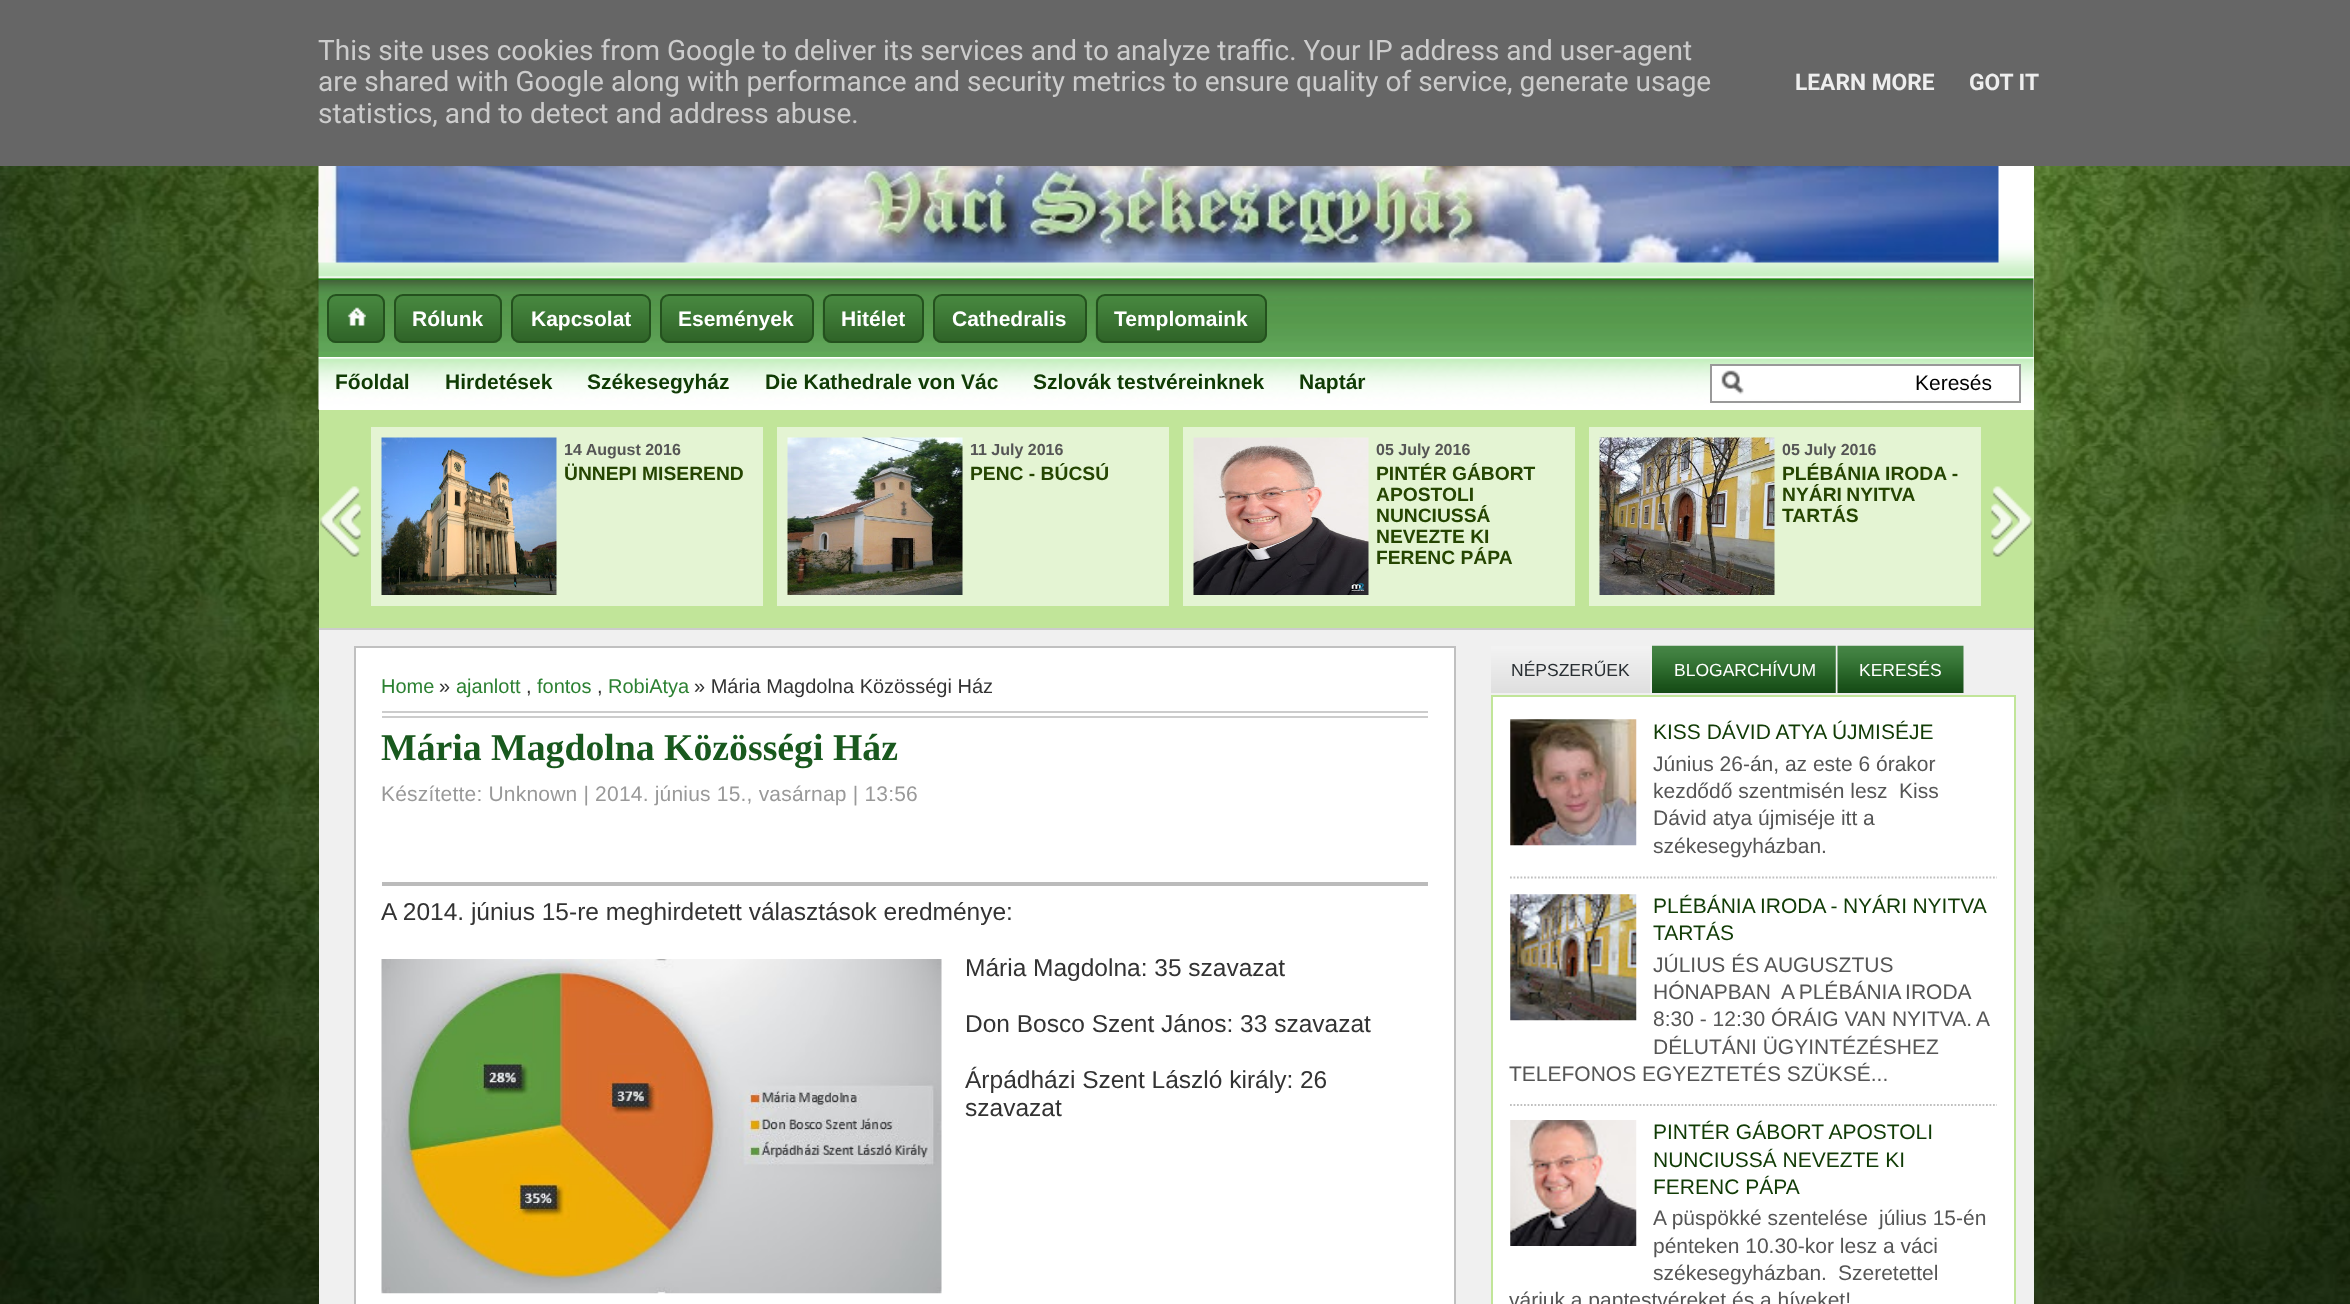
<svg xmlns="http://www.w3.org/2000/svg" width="2350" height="1304">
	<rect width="100%" height="100%" fill="#FFFFFF" />
	<image x="0" y="166" width="2350" height="1138" href="assets/img1.png" />
	<rect x="0" y="0" width="2350" height="166" fill="#666666" />
	<g font-family="Roboto" font-size="28" fill="#CCCCCC">
		<text x="318" y="60">This site uses cookies from Google to deliver its services and to analyze traffic. Your IP address and user-agent</text>
		<text x="318" y="91">are shared with Google along with performance and security metrics to ensure quality of service, generate usage</text>
		<text x="318" y="123">statistics, and to detect and address abuse.</text>
	</g>
	<g font-family="Roboto" font-size="22.75" font-weight="700" fill="#EEEEEE">
		<text x="1795" y="90">LEARN MORE</text>
		<text x="1969" y="90">GOT IT</text>
	</g>
	<rect x="319" y="280" width="1715" height="1024" fill="#F0F0F0" />
	<rect x="1998" y="166" width="36" height="114" fill="#FFFFFF" />
	<image x="318" y="206" width="1716" height="74" href="assets/img2.png" />
	<image x="318" y="166" width="1681" height="97" href="assets/img3.png" />
	<image x="318" y="280" width="1716" height="77" href="assets/img4.png" />
	<image x="327" y="296" width="58" height="47" href="assets/img5.png" />
	<rect x="328" y="295" width="56" height="47" rx="8" fill="none" stroke="#24511E" stroke-width="2" />
	<image x="347" y="307" width="19" height="19" href="assets/img6.png" />
	<image x="394" y="296" width="108" height="47" href="assets/img7.png" />
	<rect x="395" y="295" width="106" height="47" rx="8" fill="none" stroke="#24511E" stroke-width="2" />
	<text x="412" y="326" font-family="Liberation Sans" font-size="21" font-weight="700" fill="#FFFFFF">Rólunk</text>
	<image x="511" y="296" width="140" height="47" href="assets/img8.png" />
	<rect x="512" y="295" width="138" height="47" rx="8" fill="none" stroke="#24511E" stroke-width="2" />
	<text x="531" y="326" font-family="Liberation Sans" font-size="21" font-weight="700" fill="#FFFFFF">Kapcsolat</text>
	<image x="660" y="296" width="154" height="47" href="assets/img9.png" />
	<rect x="661" y="295" width="152" height="47" rx="8" fill="none" stroke="#24511E" stroke-width="2" />
	<text x="678" y="326" font-family="Liberation Sans" font-size="21" font-weight="700" fill="#FFFFFF">Események</text>
	<image x="822" y="296" width="102" height="47" href="assets/img10.png" />
	<rect x="824" y="295" width="99" height="47" rx="8" fill="none" stroke="#24511E" stroke-width="2" />
	<text x="841" y="326" font-family="Liberation Sans" font-size="21" font-weight="700" fill="#FFFFFF">Hitélet</text>
	<image x="933" y="296" width="154" height="47" href="assets/img11.png" />
	<rect x="934" y="295" width="152" height="47" rx="8" fill="none" stroke="#24511E" stroke-width="2" />
	<text x="952" y="326" font-family="Liberation Sans" font-size="21" font-weight="700" fill="#FFFFFF">Cathedralis</text>
	<image x="1095" y="296" width="172" height="47" href="assets/img12.png" />
	<rect x="1097" y="295" width="169" height="47" rx="8" fill="none" stroke="#24511E" stroke-width="2" />
	<text x="1114" y="326" font-family="Liberation Sans" font-size="21" font-weight="700" fill="#FFFFFF">Templomaink</text>
	<rect x="319" y="357" width="1715" height="53" fill="#FFFFFF" />
	<image x="318" y="357" width="1716" height="53" href="assets/img13.png" />
	<g font-family="Liberation Sans" font-size="21" font-weight="700" fill="#103B05">
		<text x="335" y="389">Főoldal</text>
		<text x="445" y="389">Hirdetések</text>
		<text x="587" y="389">Székesegyház</text>
		<text x="765" y="389">Die Kathedrale von Vác</text>
		<text x="1033" y="389">Szlovák testvéreinknek</text>
		<text x="1299" y="389">Naptár</text>
	</g>
	<rect x="1712" y="366" width="307" height="33" fill="#FFFFFF" />
	<image x="1721" y="370" width="23" height="25" href="assets/img14.png" />
	<rect x="1711" y="365" width="309" height="37" fill="none" stroke="#999999" stroke-width="2" />
	<text x="1915" y="390" font-family="Liberation Sans" font-size="21" fill="#000000">Keresés</text>
	<rect x="319" y="410" width="1715" height="218" fill="#C1E599" />
	<rect x="319" y="628" width="1715" height="2" fill="#CCCCCC" />
	<image x="320" y="486" width="41" height="71" href="assets/img15.png" />
	<rect x="371" y="427" width="392" height="179" fill="#E4F4D3" />
	<image x="381" y="437" width="176" height="158" href="assets/img16.png" />
	<text x="564" y="455" font-family="Liberation Sans" font-size="16" font-weight="700" fill="#555555">14 August 2016</text>
	<text x="564" y="480" font-family="Liberation Sans" font-size="19.25" font-weight="700" fill="#254501">ÜNNEPI MISEREND</text>
	<rect x="777" y="427" width="392" height="179" fill="#E4F4D3" />
	<image x="787" y="437" width="176" height="158" href="assets/img17.png" />
	<text x="970" y="455" font-family="Liberation Sans" font-size="16" font-weight="700" fill="#555555">11 July 2016</text>
	<text x="970" y="480" font-family="Liberation Sans" font-size="19.25" font-weight="700" fill="#254501">PENC - BÚCSÚ</text>
	<rect x="1183" y="427" width="392" height="179" fill="#E4F4D3" />
	<image x="1193" y="437" width="176" height="158" href="assets/img18.png" />
	<text x="1376" y="455" font-family="Liberation Sans" font-size="16" font-weight="700" fill="#555555">05 July 2016</text>
	<g font-family="Liberation Sans" font-size="19.25" font-weight="700" fill="#254501">
		<text x="1376" y="480">PINTÉR GÁBORT</text>
		<text x="1376" y="501">APOSTOLI</text>
		<text x="1376" y="522">NUNCIUSSÁ</text>
		<text x="1376" y="543">NEVEZTE KI</text>
		<text x="1376" y="564">FERENC PÁPA</text>
	</g>
	<rect x="1589" y="427" width="392" height="179" fill="#E4F4D3" />
	<image x="1599" y="437" width="176" height="158" href="assets/img19.png" />
	<text x="1782" y="455" font-family="Liberation Sans" font-size="16" font-weight="700" fill="#555555">05 July 2016</text>
	<g font-family="Liberation Sans" font-size="19.25" font-weight="700" fill="#254501">
		<text x="1782" y="480">PLÉBÁNIA IRODA -</text>
		<text x="1782" y="501" word-spacing="-1">NYÁRI NYITVA</text>
		<text x="1782" y="522">TARTÁS</text>
	</g>
	<image x="1991" y="486" width="42" height="71" href="assets/img20.png" />
	<rect x="355" y="647" width="1100" height="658" fill="#FFFFFF" stroke="#C0C0C0" stroke-width="2" />
	<rect x="382" y="711" width="1046" height="2" fill="#CCCCCC" />
	<rect x="382" y="716" width="1046" height="2" fill="#CCCCCC" />
	<text x="381" y="693" font-family="Liberation Sans" font-size="20" fill="#2C8132">Home</text>
	<text x="439" y="693" font-family="Liberation Sans" font-size="20" fill="#333333">»</text>
	<g font-family="Liberation Sans" font-size="20" fill="#2C8132">
		<text x="456" y="693">ajanlott</text>
		<text x="537" y="693">fontos</text>
		<text x="608" y="693">RobiAtya</text>
	</g>
	<g font-family="Liberation Sans" font-size="20" fill="#333333">
		<text x="694" y="693">» Mária Magdolna Közösségi Ház</text>
		<text x="526" y="693">,</text>
		<text x="597" y="693">,</text>
	</g>
	<text x="381" y="760" font-family="Liberation Serif" font-size="37.75" font-weight="700" fill="#19591E">Mária Magdolna Közösségi Ház</text>
	<text x="381" y="801" font-family="Liberation Sans" font-size="21" letter-spacing="0.2" fill="#999999">Készítette: Unknown | 2014. június 15., vasárnap | 13:56</text>
	<rect x="382" y="882" width="1046" height="4" fill="#BBBBBB" />
	<text x="381" y="920" font-family="Liberation Sans" font-size="24.5" fill="#333333">A 2014. június 15-re meghirdetett választások eredménye:</text>
	<image x="381" y="959" width="561" height="335" href="assets/img21.png" />
	<g font-family="Liberation Sans" font-size="24.5" fill="#333333">
		<text x="965" y="976">Mária Magdolna: 35 szavazat</text>
		<text x="965" y="1032">Don Bosco Szent János: 33 szavazat</text>
		<text x="965" y="1088">Árpádházi Szent László király: 26</text>
		<text x="965" y="1116">szavazat</text>
	</g>
	<image x="1491" y="646" width="160" height="47" href="assets/img22.png" />
	<image x="1652" y="645" width="184" height="48" href="assets/img23.png" />
	<image x="1837" y="645" width="127" height="48" href="assets/img24.png" />
	<text x="1511" y="676" font-family="Liberation Sans" font-size="17.5" fill="#282E32">NÉPSZERŰEK</text>
	<g font-family="Liberation Sans" font-size="17.5" fill="#FFFFFF">
		<text x="1674" y="676">BLOGARCHÍVUM</text>
		<text x="1859" y="676">KERESÉS</text>
	</g>
	<rect x="1492" y="696" width="523" height="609" fill="#FFFFFF" stroke="#C1E599" stroke-width="2" />
	<path d="M1510 877.5H1997" fill="none" stroke="#C0C0C0" stroke-width="1.8" stroke-dasharray="1.75 1.75" />
	<image x="1510" y="719" width="127" height="127" href="assets/img25.png" />
	<text x="1653" y="739" font-family="Liberation Sans" font-size="21" fill="#103B05">KISS DÁVID ATYA ÚJMISÉJE</text>
	<g font-family="Liberation Sans" font-size="21" fill="#555555">
		<text x="1653" y="771">Június 26-án, az este 6 órakor</text>
		<text x="1653" y="798">kezdődő szentmisén lesz</text>
		<text x="1899" y="798">Kiss</text>
		<text x="1653" y="825">Dávid atya újmiséje itt a</text>
		<text x="1653" y="853">székesegyházban.</text>
	</g>
	<path d="M1510 1105H1997" fill="none" stroke="#C0C0C0" stroke-width="1.8" stroke-dasharray="1.75 1.75" />
	<image x="1510" y="894" width="127" height="127" href="assets/img26.png" />
	<g font-family="Liberation Sans" font-size="21" fill="#103B05">
		<text x="1653" y="913" word-spacing="-0.5">PLÉBÁNIA IRODA - NYÁRI NYITVA</text>
		<text x="1653" y="940">TARTÁS</text>
	</g>
	<g font-family="Liberation Sans" font-size="21" fill="#555555">
		<text x="1653" y="972">JÚLIUS ÉS AUGUSZTUS</text>
		<text x="1653" y="999">HÓNAPBAN</text>
		<text x="1781" y="999" word-spacing="-1">A PLÉBÁNIA IRODA</text>
		<text x="1653" y="1026">8:30 - 12:30 ÓRÁIG VAN NYITVA.</text>
		<text x="1976" y="1026">A</text>
		<text x="1653" y="1054">DÉLUTÁNI ÜGYINTÉZÉSHEZ</text>
		<text x="1509" y="1081">TELEFONOS EGYEZTETÉS SZÜKSÉ...</text>
	</g>
	<image x="1510" y="1120" width="127" height="126" href="assets/img27.png" />
	<g font-family="Liberation Sans" font-size="21" fill="#103B05">
		<text x="1653" y="1139">PINTÉR GÁBORT APOSTOLI</text>
		<text x="1653" y="1167">NUNCIUSSÁ NEVEZTE KI</text>
		<text x="1653" y="1194">FERENC PÁPA</text>
	</g>
	<g font-family="Liberation Sans" font-size="21" fill="#555555">
		<text x="1653" y="1225">A püspökké szentelése</text>
		<text x="1879" y="1225">július 15-én</text>
		<text x="1653" y="1253">pénteken 10.30-kor lesz a váci</text>
		<text x="1653" y="1280">székesegyházban.</text>
		<text x="1838" y="1280">Szeretettel</text>
		<text x="1509" y="1307">várjuk a paptestvéreket és a híveket!</text>
	</g>
</svg>
